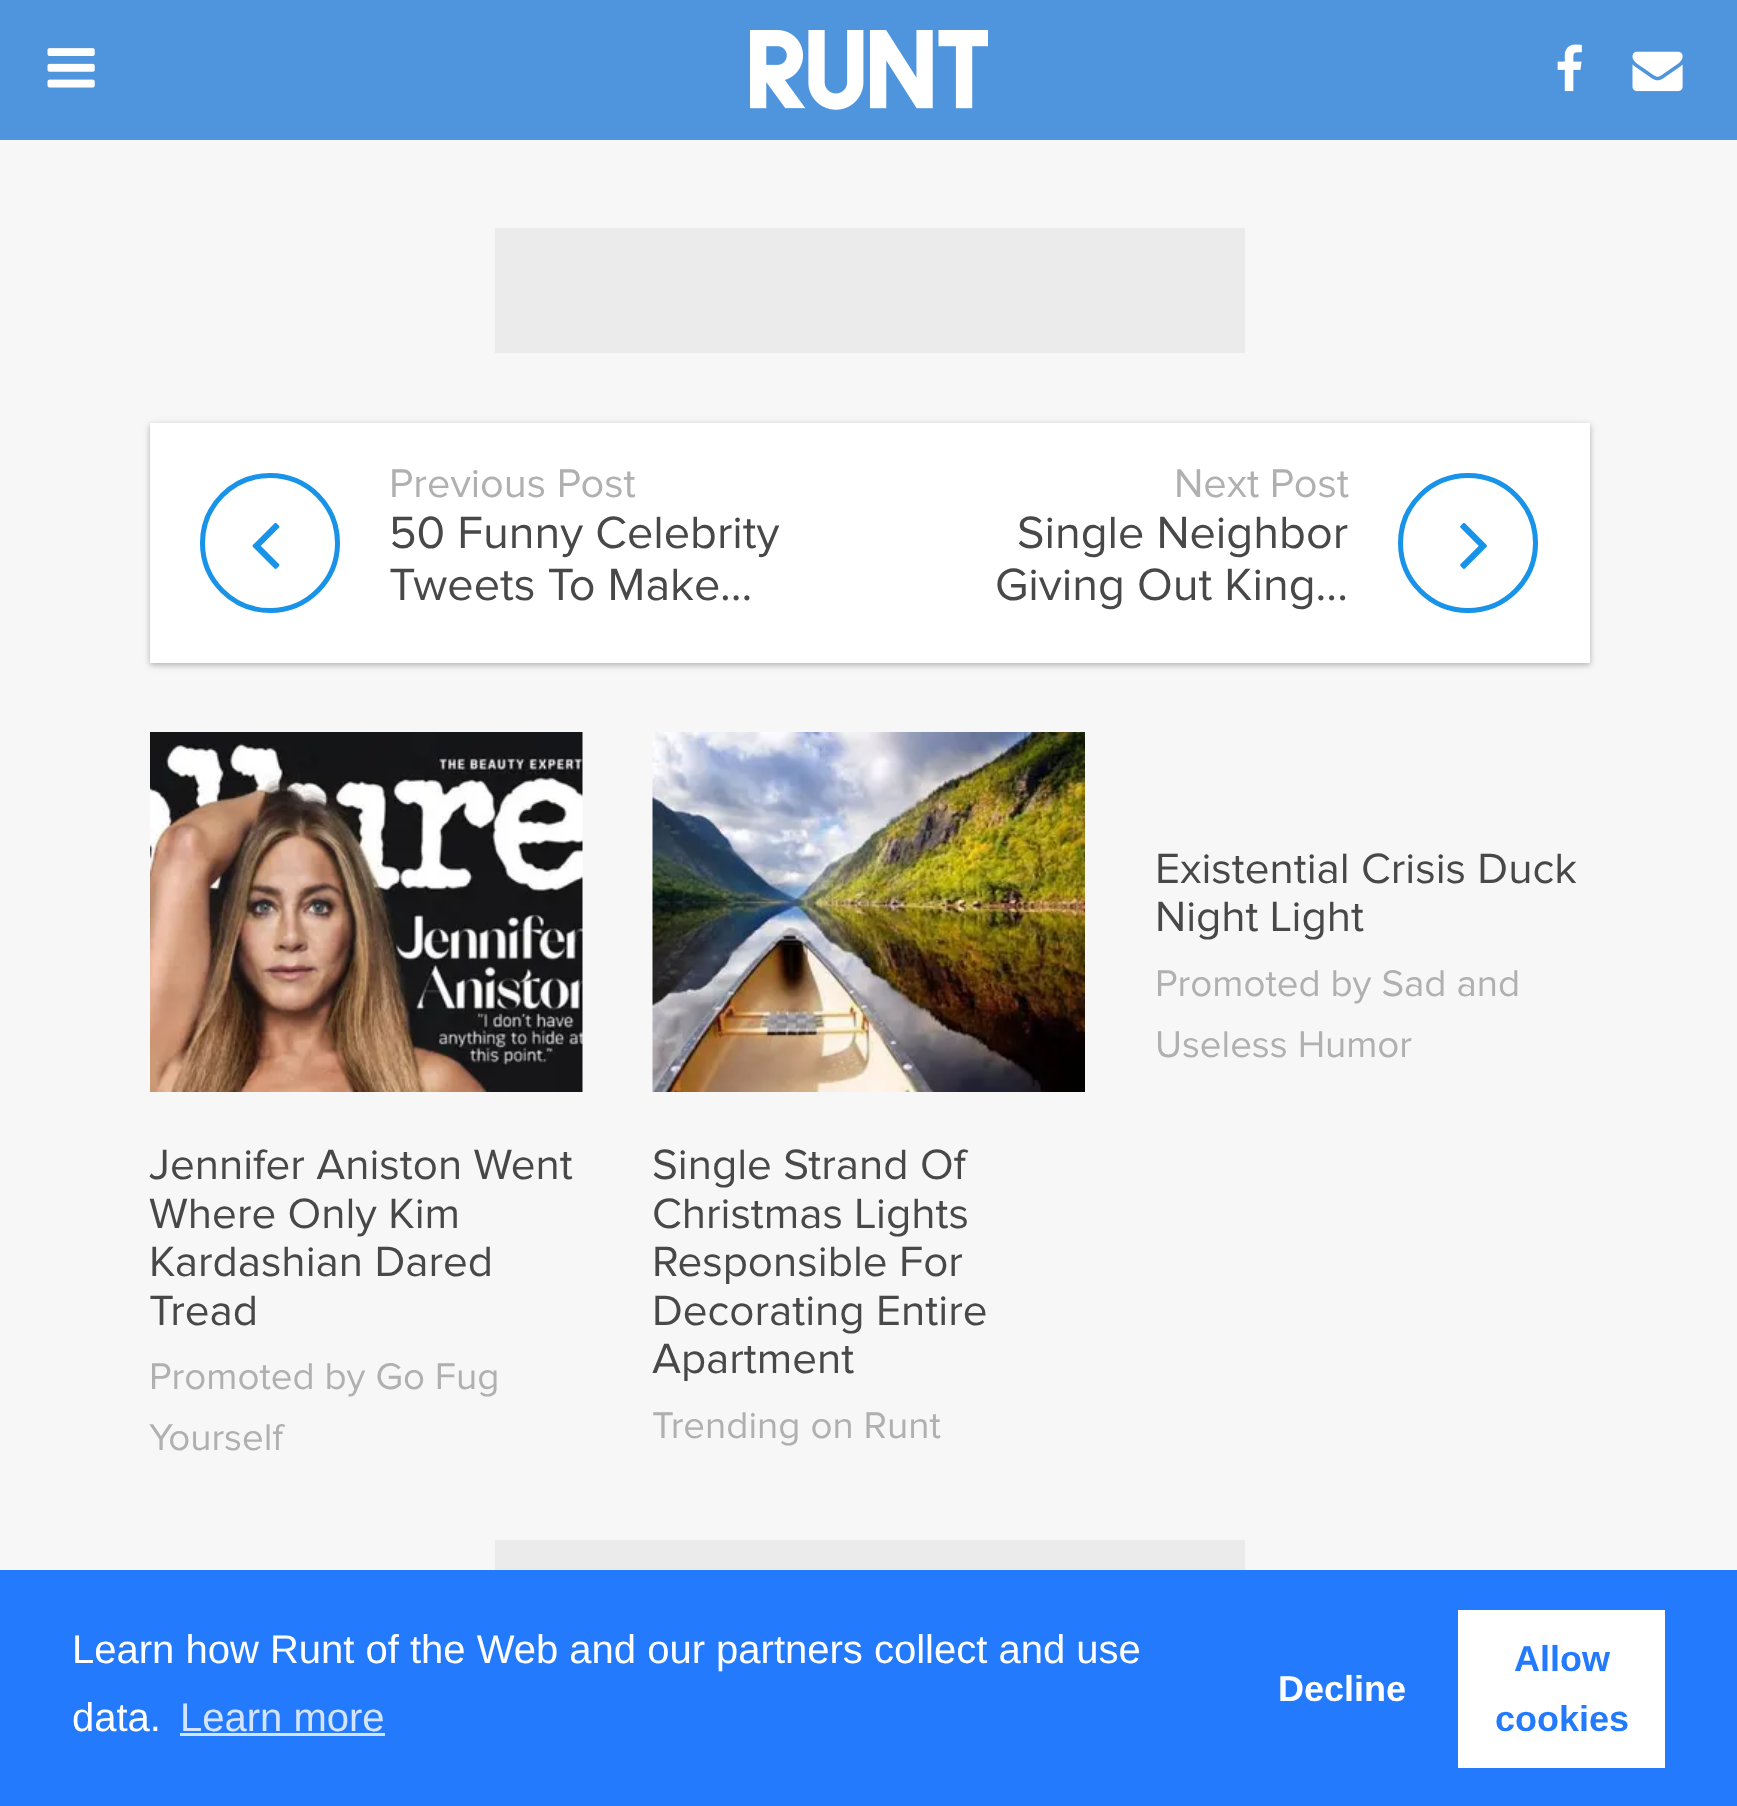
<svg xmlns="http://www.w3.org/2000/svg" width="1737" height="1806">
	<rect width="100%" height="100%" fill="#F7F7F7" />
	<rect x="0" y="0" width="1737" height="140" fill="#4F95DE" />
	<image x="47" y="48" width="48" height="40" href="assets/img1.png" />
	<image x="750" y="30" width="238" height="80" href="assets/img2.png" />
	<image x="1557" y="44" width="25" height="48" href="assets/img3.png" />
	<image x="1632" y="51" width="51" height="41" href="assets/img4.png" />
	<rect x="495" y="228" width="750" height="125" fill="#EBEBEB" />
	<rect x="150" y="425" width="1440" height="240" fill="#000000" fill-opacity="0.18" filter="blur(2.5px)" />
	<rect x="150" y="425" width="1440" height="240" fill="#000000" fill-opacity="0.12" filter="blur(4px)" />
	<rect x="150" y="423" width="1440" height="240" fill="#FFFFFF" />
	<circle cx="270" cy="543" r="67.5" fill="none" stroke="#1893E7" stroke-width="5" />
	<image x="252" y="522" width="28" height="47" href="assets/img5.png" />
	<text x="389" y="497" font-family="Proxima Nova" font-size="41.5" fill="#B0B0B0">Previous Post</text>
	<g font-family="Proxima Nova" font-size="46.75" fill="#484848">
		<text x="389" y="548">50 Funny Celebrity</text>
		<text x="389" y="600">Tweets To Make...</text>
	</g>
	<text x="1174" y="497" font-family="Proxima Nova" font-size="41.5" fill="#B0B0B0">Next Post</text>
	<g font-family="Proxima Nova" font-size="46.75" fill="#484848">
		<text x="1017" y="548">Single Neighbor</text>
		<text x="995" y="600">Giving Out King...</text>
	</g>
	<circle cx="1468" cy="543" r="67.5" fill="none" stroke="#1893E7" stroke-width="5" />
	<image x="1460" y="522" width="27" height="47" href="assets/img6.png" />
	<g font-family="Proxima Nova" font-size="44" fill="#484848">
		<text x="1155" y="883">Existential Crisis Duck</text>
		<text x="1155" y="931">Night Light</text>
	</g>
	<g font-family="Proxima Nova" font-size="38.5" fill="#B0B0B0">
		<text x="1155" y="996">Promoted by Sad and</text>
		<text x="1155" y="1057">Useless Humor</text>
	</g>
	<image x="150" y="732" width="433" height="360" href="assets/img7.png" />
	<g font-family="Proxima Nova" font-size="44" fill="#484848">
		<text x="149" y="1179">Jennifer Aniston Went</text>
		<text x="149" y="1228">Where Only Kim</text>
		<text x="149" y="1276">Kardashian Dared</text>
		<text x="149" y="1325">Tread</text>
	</g>
	<g font-family="Proxima Nova" font-size="38.5" fill="#B0B0B0">
		<text x="149" y="1389">Promoted by Go Fug</text>
		<text x="149" y="1450">Yourself</text>
	</g>
	<image x="652" y="732" width="433" height="360" href="assets/img8.png" />
	<g font-family="Proxima Nova" font-size="44" fill="#484848">
		<text x="652" y="1179">Single Strand Of</text>
		<text x="652" y="1228">Christmas Lights</text>
		<text x="652" y="1276">Responsible For</text>
		<text x="652" y="1325">Decorating Entire</text>
		<text x="652" y="1373">Apartment</text>
	</g>
	<text x="652" y="1438" font-family="Proxima Nova" font-size="38.5" fill="#B0B0B0">Trending on Runt</text>
	<rect x="495" y="1540" width="750" height="30" fill="#EBEBEB" />
	<rect x="0" y="1570" width="1737" height="236" fill="#237AFC" />
	<g font-family="Liberation Sans" font-size="40" fill="#FFFFFF">
		<text x="72" y="1663">Learn how Runt of the Web and our partners collect and use</text>
		<text x="72" y="1731">data.</text>
	</g>
	<text x="180" y="1731" font-family="Liberation Sans" font-size="40" fill="#D3E4FE">Learn more</text>
	<rect x="180" y="1733" width="205" height="3" fill="#D3E4FE" />
	<text x="1278" y="1701" font-family="Liberation Sans" font-size="36" font-weight="700" fill="#FFFFFF">Decline</text>
	<rect x="1458" y="1610" width="207" height="158" fill="#FFFFFF" />
	<g font-family="Liberation Sans" font-size="36" font-weight="700" fill="#237AFC">
		<text x="1514" y="1671">Allow</text>
		<text x="1495" y="1731">cookies</text>
	</g>
</svg>
